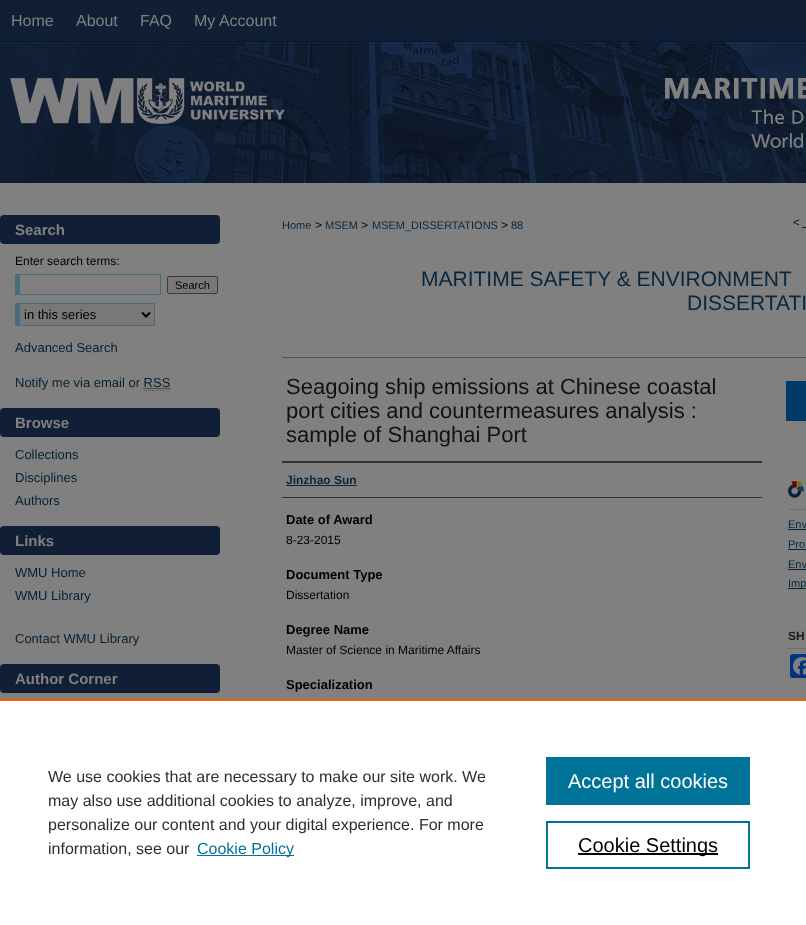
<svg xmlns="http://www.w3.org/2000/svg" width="806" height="925">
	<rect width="100%" height="100%" fill="#808080" />
	<image x="0" y="0" width="806" height="41" href="assets/img1.png" />
	<g font-family="Liberation Sans" font-size="16" fill="#808080">
		<text x="11" y="26">Home</text>
		<text x="76" y="26">About</text>
		<text x="140" y="26">FAQ</text>
		<text x="194" y="26">My Account</text>
	</g>
	<image x="0" y="41" width="806" height="142" href="assets/img2.png" />
	<rect x="0" y="215" width="220" height="29" rx="4" fill="#111F36" />
	<text x="15" y="235" font-family="Liberation Sans" font-size="15" font-weight="700" fill="#808080">Search</text>
	<text x="15" y="265" font-family="Liberation Sans" font-size="12" fill="#000000">Enter search terms:</text>
	<rect x="15" y="274" width="146" height="1" fill="#476C7C" />
	<rect x="160" y="274" width="1" height="21" fill="#476C7C" />
	<rect x="15" y="294" width="146" height="1" fill="#476C7C" />
	<rect x="15" y="274" width="5" height="21" fill="#476C7C" />
	<rect x="167.5" y="276.5" width="50" height="17" rx="1.5" fill="#787878" stroke="#3B3B3B" />
	<text x="175" y="289" font-family="Liberation Sans" font-size="11" fill="#000000">Search</text>
	<rect x="20" y="304" width="134" height="21" fill="#787878" />
	<rect x="15" y="303" width="140" height="1" fill="#476C7C" />
	<rect x="154" y="303" width="1" height="23" fill="#476C7C" />
	<rect x="15" y="325" width="140" height="1" fill="#476C7C" />
	<rect x="15" y="303" width="5" height="23" fill="#476C7C" />
	<path d="M142 312.5L146 316.5L150 312.5" fill="none" stroke="#000000" stroke-width="2" />
	<text x="24" y="319" font-family="Liberation Sans" font-size="13" fill="#000000">in this series</text>
	<g font-family="Liberation Sans" font-size="13" fill="#072031">
		<text x="15" y="352">Advanced Search</text>
		<text x="15" y="387">Notify me via email or RSS</text>
	</g>
	<path d="M143.5 388.5H170.5" fill="none" stroke="#072031" stroke-dasharray="1 1" />
	<path d="M144 390.5H170" fill="none" stroke="#4D4D4D" stroke-dasharray="1 1" />
	<rect x="0" y="408" width="220" height="29" rx="4" fill="#111F36" />
	<text x="15" y="428" font-family="Liberation Sans" font-size="15" font-weight="700" fill="#808080">Browse</text>
	<g font-family="Liberation Sans" font-size="13" fill="#072031">
		<text x="15" y="459">Collections</text>
		<text x="15" y="482">Disciplines</text>
		<text x="15" y="505">Authors</text>
	</g>
	<rect x="0" y="526" width="220" height="29" rx="4" fill="#111F36" />
	<text x="15" y="546" font-family="Liberation Sans" font-size="15" font-weight="700" fill="#808080">Links</text>
	<g font-family="Liberation Sans" font-size="13" fill="#072031">
		<text x="15" y="577">WMU Home</text>
		<text x="15" y="600">WMU Library</text>
		<text x="15" y="643">Contact WMU Library</text>
	</g>
	<rect x="0" y="664" width="220" height="29" rx="4" fill="#111F36" />
	<text x="15" y="684" font-family="Liberation Sans" font-size="15" font-weight="700" fill="#808080">Author Corner</text>
	<text x="282" y="229" font-family="Liberation Sans" font-size="11" fill="#08273E">Home</text>
	<text x="315" y="229" font-family="Liberation Sans" font-size="12" fill="#000000">&gt;</text>
	<text x="325" y="229" font-family="Liberation Sans" font-size="11" fill="#08273E">MSEM</text>
	<text x="361" y="229" font-family="Liberation Sans" font-size="12" fill="#000000">&gt;</text>
	<text x="372" y="229" font-family="Liberation Sans" font-size="11" fill="#08273E">MSEM_DISSERTATIONS</text>
	<text x="501" y="229" font-family="Liberation Sans" font-size="12" fill="#000000">&gt;</text>
	<text x="511" y="229" font-family="Liberation Sans" font-size="11" fill="#08273E">88</text>
	<text x="793" y="226" font-family="Liberation Sans" font-size="11" fill="#111111">&lt;</text>
	<rect x="802" y="227" width="4" height="1" fill="#08273E" />
	<g font-family="Liberation Sans" font-size="21" fill="#08273E">
		<text x="421" y="286">MARITIME SAFETY &amp; ENVIRONMENT</text>
		<text x="687" y="310">DISSERTATI</text>
	</g>
	<rect x="282" y="357" width="524" height="1" fill="#555555" />
	<g font-family="Liberation Sans" font-size="22" fill="#111111">
		<text x="286" y="394">Seagoing ship emissions at Chinese coastal</text>
		<text x="286" y="418">port cities and countermeasures analysis :</text>
		<text x="286" y="442">sample of Shanghai Port</text>
	</g>
	<rect x="282" y="461" width="480" height="2" fill="#333333" />
	<rect x="282" y="497" width="480" height="1" fill="#333333" />
	<text x="286" y="484" font-family="Liberation Sans" font-size="12" font-weight="700" fill="#08273E">Jinzhao Sun</text>
	<rect x="286" y="485" width="71" height="1" fill="#08273E" />
	<text x="286" y="524" font-family="Liberation Sans" font-size="13" font-weight="700" fill="#000000">Date of Award</text>
	<text x="286" y="544" font-family="Liberation Sans" font-size="12" fill="#000000">8-23-2015</text>
	<text x="286" y="579" font-family="Liberation Sans" font-size="13" font-weight="700" fill="#000000">Document Type</text>
	<text x="286" y="599" font-family="Liberation Sans" font-size="12" fill="#000000">Dissertation</text>
	<text x="286" y="634" font-family="Liberation Sans" font-size="13" font-weight="700" fill="#000000">Degree Name</text>
	<text x="286" y="654" font-family="Liberation Sans" font-size="12" fill="#000000">Master of Science in Maritime Affairs</text>
	<text x="286" y="689" font-family="Liberation Sans" font-size="13" font-weight="700" fill="#000000">Specialization</text>
	<rect x="786" y="381" width="20" height="40" fill="#003A66" />
	<image x="788" y="481" width="16" height="17" href="assets/img3.png" />
	<rect x="788" y="509" width="18" height="1" fill="#6F6F6F" />
	<text x="788" y="528" font-family="Liberation Sans" font-size="11" fill="#08273E">Env</text>
	<rect x="788" y="529" width="18" height="1" fill="#08273E" />
	<text x="788" y="548" font-family="Liberation Sans" font-size="11" fill="#08273E">Pro</text>
	<rect x="788" y="549" width="18" height="1" fill="#08273E" />
	<text x="788" y="568" font-family="Liberation Sans" font-size="11" fill="#08273E">Env</text>
	<rect x="788" y="569" width="18" height="1" fill="#08273E" />
	<rect x="788" y="588" width="18" height="1" fill="#08273E" />
	<text x="788" y="587" font-family="Liberation Sans" font-size="11" fill="#08273E">Imp</text>
	<rect x="788" y="648" width="18" height="1" fill="#6F6F6F" />
	<text x="788" y="640" font-family="Liberation Sans" font-size="12" font-weight="700" fill="#1A1A1A">SH</text>
	<rect x="790" y="654" width="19" height="24" rx="3" fill="#043380" />
	<image x="793" y="657" width="13" height="18" href="assets/img4.png" />
	<rect x="0" y="701" width="806" height="224" fill="#FFFFFF" />
	<rect x="0" y="699" width="806" height="2" fill="#EB6500" />
	<g font-family="Liberation Sans" font-size="16" fill="#2E2E2E">
		<text x="48" y="782">We use cookies that are necessary to make our site work. We</text>
		<text x="48" y="806">may also use additional cookies to analyze, improve, and</text>
		<text x="48" y="830">personalize our content and your digital experience. For more</text>
		<text x="48" y="854">information, see our</text>
	</g>
	<rect x="197" y="855" width="97" height="1" fill="#007398" />
	<text x="197" y="854" font-family="Liberation Sans" font-size="16" fill="#007398">Cookie Policy</text>
	<rect x="546" y="757" width="204" height="48" fill="#007398" />
	<text x="568" y="788" font-family="Liberation Sans" font-size="20" fill="#FFFFFF">Accept all cookies</text>
	<rect x="547" y="822" width="202" height="46" fill="none" stroke="#007398" stroke-width="2" />
	<rect x="578" y="853" width="140" height="2" fill="#000000" />
	<text x="578" y="852" font-family="Liberation Sans" font-size="20" fill="#000000">Cookie Settings</text>
</svg>
